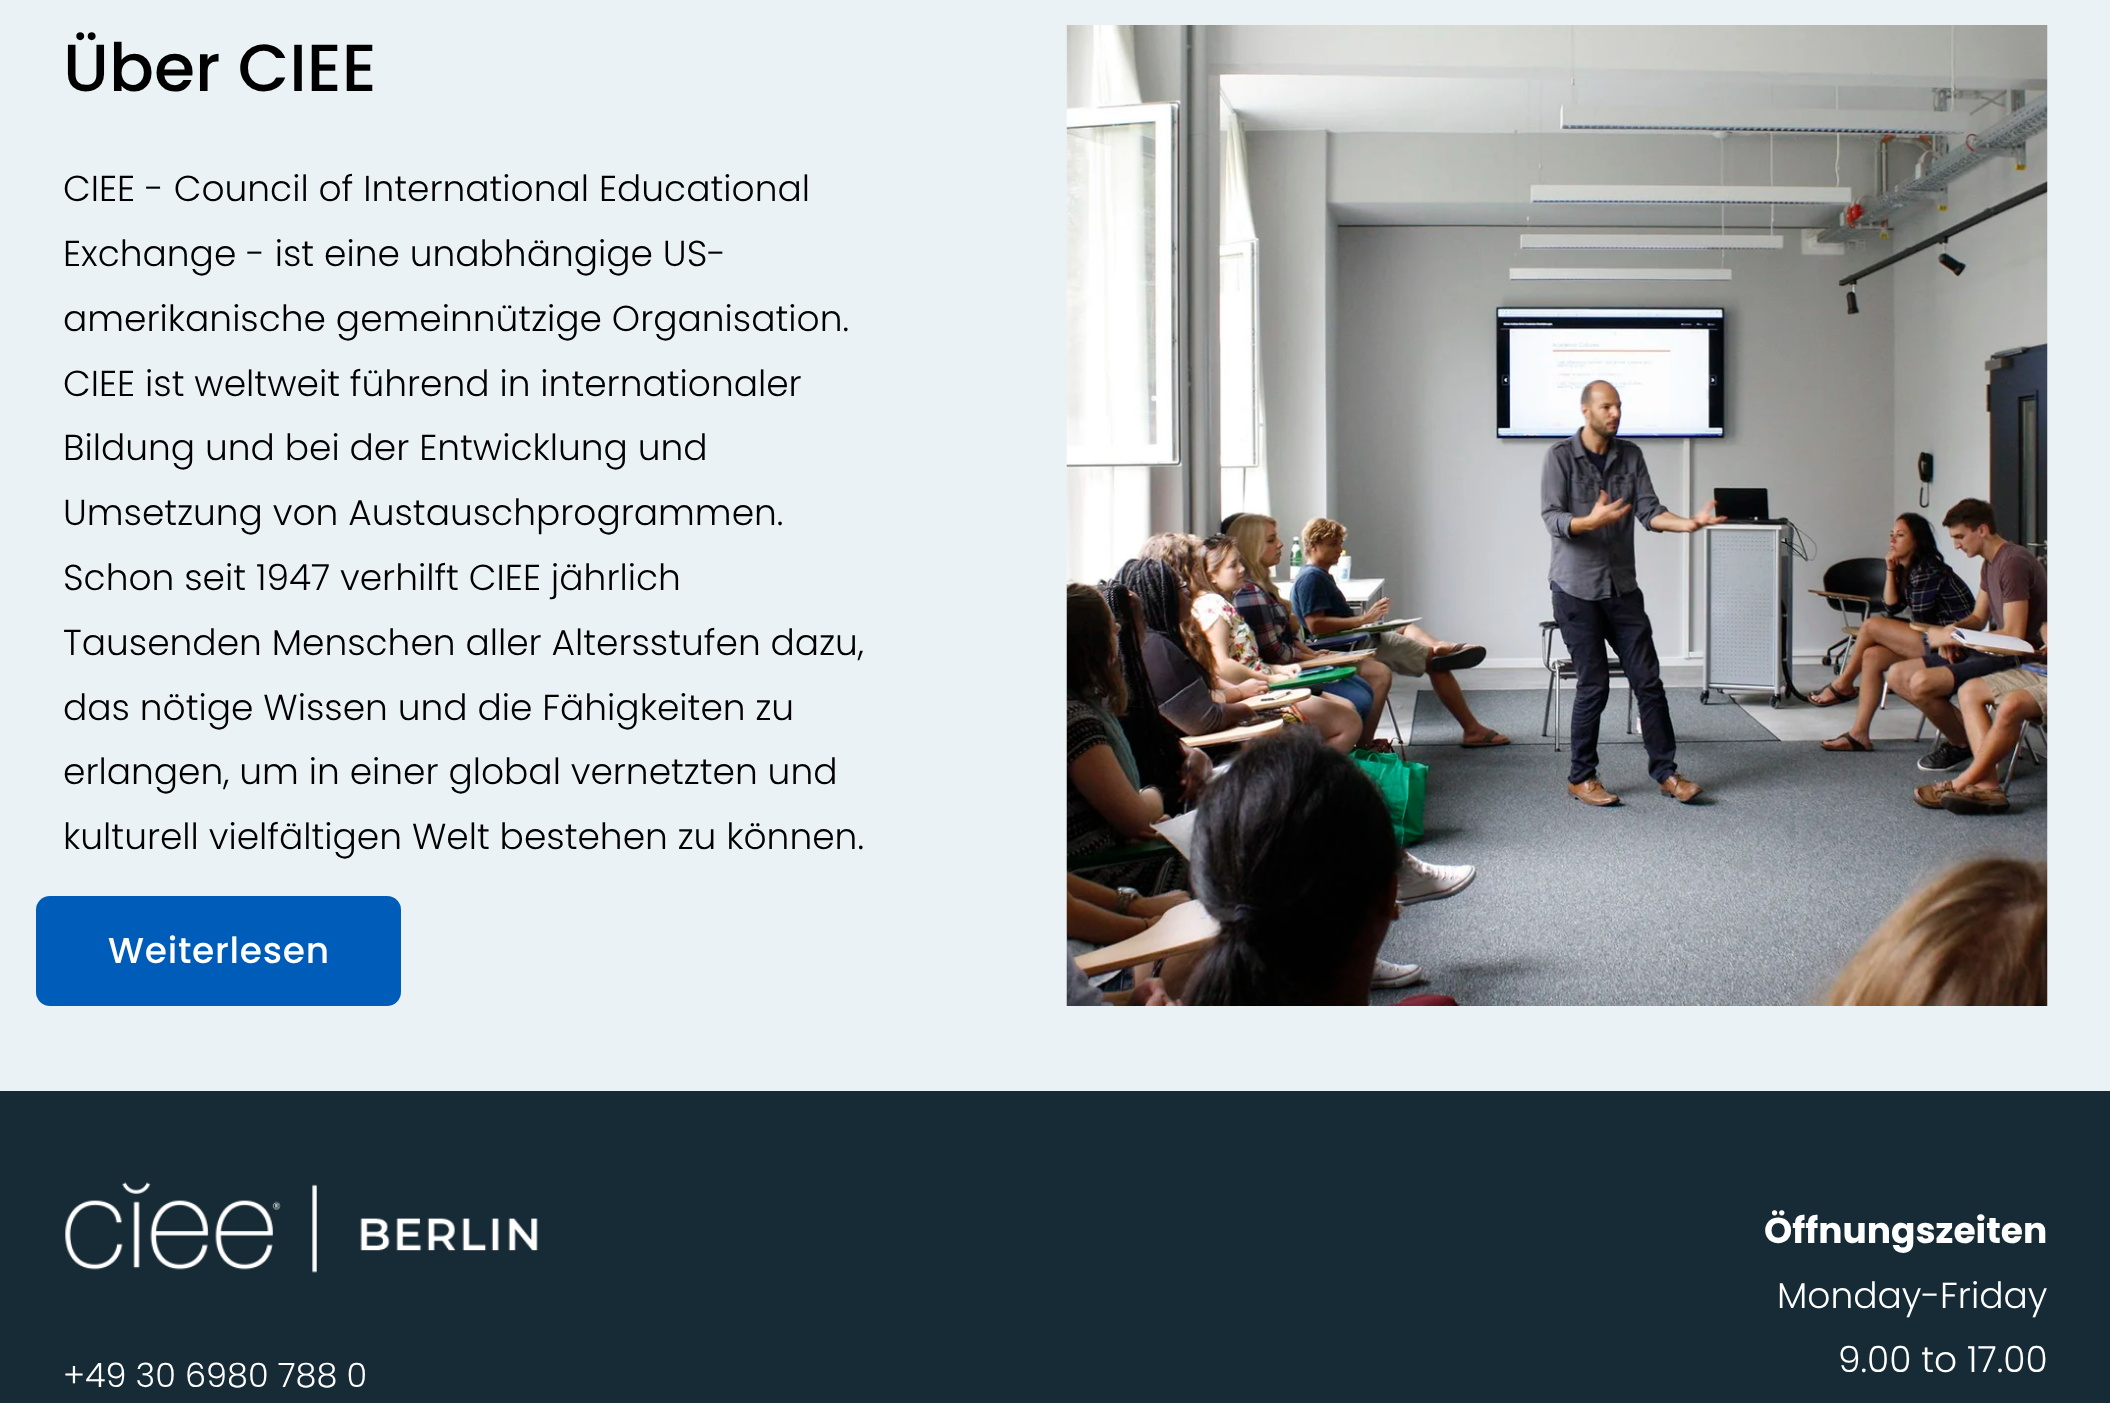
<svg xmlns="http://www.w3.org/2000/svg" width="2110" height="1403">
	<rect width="100%" height="100%" fill="#172B36" />
	<rect x="0" y="0" width="2110" height="1091" fill="#EAF2F6" />
	<text x="63" y="91" font-family="Poppins" font-size="66.5" font-weight="500" fill="#000000">Über CIEE</text>
	<image x="1066" y="25" width="982" height="981" href="assets/img1.png" />
	<g font-family="Poppins" font-size="36" font-weight="300" fill="#000000">
		<text x="63" y="201">CIEE - Council of International Educational</text>
		<text x="63" y="266">Exchange - ist eine unabhängige US-</text>
		<text x="63" y="331">amerikanische gemeinnützige Organisation.</text>
		<text x="63" y="396">CIEE ist weltweit führend in internationaler</text>
		<text x="63" y="460">Bildung und bei der Entwicklung und</text>
		<text x="63" y="525">Umsetzung von Austauschprogrammen.</text>
		<text x="63" y="590">Schon seit 1947 verhilft CIEE jährlich</text>
		<text x="63" y="655">Tausenden Menschen aller Altersstufen dazu,</text>
		<text x="63" y="720">das nötige Wissen und die Fähigkeiten zu</text>
		<text x="63" y="784">erlangen, um in einer global vernetzten und</text>
		<text x="63" y="849">kulturell vielfältigen Welt bestehen zu können.</text>
	</g>
	<rect x="36" y="896" width="365" height="110" rx="14" fill="#005CB9" />
	<text x="108" y="963" font-family="Poppins" font-size="36" font-weight="500" letter-spacing="0.75" fill="#FFFFFF">Weiterlesen</text>
	<image x="65" y="1182" width="473" height="91" href="assets/img2.png" />
	<text x="1764" y="1243" font-family="Poppins" font-size="36" font-weight="700" fill="#FFFFFF">Öffnungszeiten</text>
	<g font-family="Poppins" font-size="36" font-weight="300" fill="#FFFFFF">
		<text x="1777" y="1308">Monday-Friday</text>
		<text x="1838" y="1372">9.00 to 17.00</text>
	</g>
	<text x="63" y="1387" font-family="Poppins" font-size="33.5" font-weight="300" fill="#FFFFFF">+49 30 6980 788 0</text>
</svg>
